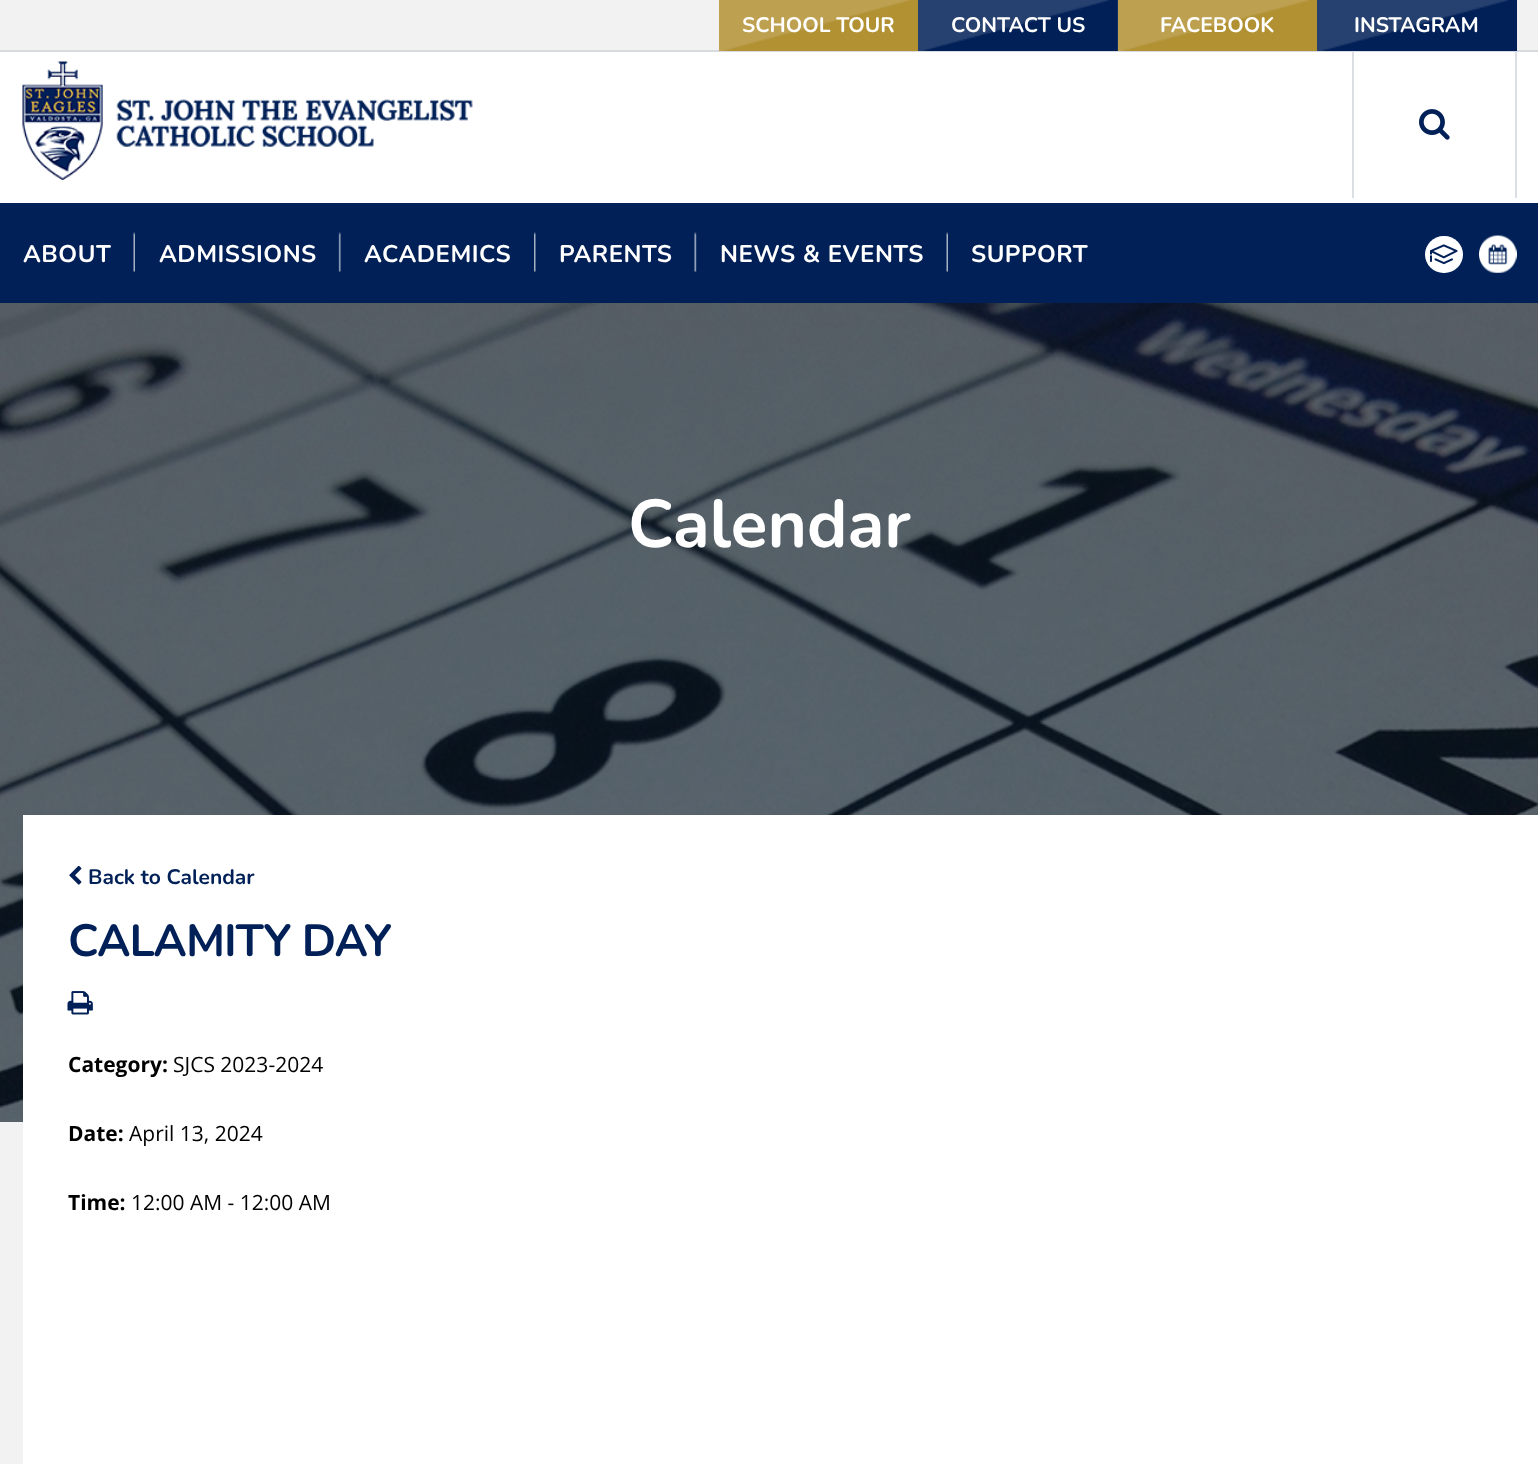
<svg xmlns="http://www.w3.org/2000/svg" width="1538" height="1464">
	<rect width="100%" height="100%" fill="#F2F2F2" />
	<rect x="0" y="52" width="1538" height="151" fill="#FFFFFF" />
	<rect x="0" y="50" width="1538" height="2" fill="#D7DBE0" />
	<rect x="719" y="0" width="199" height="51" fill="#B29133" />
	<image x="719" y="0" width="191" height="51" href="assets/img1.png" />
	<text x="742" y="32" font-family="Nunito" font-size="21" font-weight="700" fill="#FFFFFF">SCHOOL TOUR</text>
	<rect x="918" y="0" width="200" height="51" fill="#002057" />
	<image x="918" y="0" width="192" height="51" href="assets/img2.png" />
	<text x="951" y="32" font-family="Nunito" font-size="21" font-weight="700" fill="#FFFFFF">CONTACT US</text>
	<rect x="1118" y="0" width="199" height="51" fill="#B29133" />
	<image x="1117" y="0" width="192" height="51" href="assets/img3.png" />
	<text x="1160" y="32" font-family="Nunito" font-size="21" font-weight="700" fill="#FFFFFF">FACEBOOK</text>
	<rect x="1317" y="0" width="200" height="51" fill="#002057" />
	<image x="1317" y="0" width="192" height="51" href="assets/img2.png" />
	<text x="1354" y="32" font-family="Nunito" font-size="21" font-weight="700" fill="#FFFFFF">INSTAGRAM</text>
	<image x="22" y="61" width="451" height="119" href="assets/img4.png" />
	<rect x="1515" y="51" width="2" height="147" fill="#DBDFE4" />
	<rect x="1352" y="51" width="2" height="147" fill="#DBDFE4" />
	<image x="1419" y="109" width="31" height="31" href="assets/img5.png" />
	<rect x="0" y="203" width="1538" height="100" fill="#002057" />
	<image x="133" y="232" width="2" height="40" href="assets/img6.png" />
	<text x="23" y="262" font-family="Nunito" font-size="24" font-weight="700" letter-spacing="0.5" fill="#FFFFFF">ABOUT</text>
	<image x="338" y="232" width="3" height="40" href="assets/img7.png" />
	<text x="159" y="262" font-family="Nunito" font-size="24" font-weight="700" letter-spacing="0.5" fill="#FFFFFF">ADMISSIONS</text>
	<image x="534" y="232" width="2" height="40" href="assets/img8.png" />
	<text x="364" y="262" font-family="Nunito" font-size="24" font-weight="700" letter-spacing="0.5" fill="#FFFFFF">ACADEMICS</text>
	<image x="694" y="232" width="3" height="40" href="assets/img9.png" />
	<text x="559" y="262" font-family="Nunito" font-size="24" font-weight="700" letter-spacing="0.5" fill="#FFFFFF">PARENTS</text>
	<image x="946" y="232" width="2" height="40" href="assets/img6.png" />
	<g font-family="Nunito" font-size="24" font-weight="700" letter-spacing="0.5" fill="#FFFFFF">
		<text x="720" y="262">NEWS &amp; EVENTS</text>
		<text x="971" y="262">SUPPORT</text>
	</g>
	<rect x="1425" y="236" width="38" height="37" rx="18.5" fill="#FFFFFF" />
	<image x="1430" y="244" width="28" height="21" href="assets/img10.png" />
	<image x="1479" y="235" width="38" height="38" href="assets/img11.png" />
	<image x="0" y="303" width="1538" height="819" href="assets/img12.png" />
	<text x="628" y="547" font-family="Nunito" font-size="67.5" font-weight="700" fill="#FFFFFF">Calendar</text>
	<rect x="23" y="815" width="1515" height="649" fill="#FFFFFF" />
	<image x="69" y="865" width="13" height="20" href="assets/img13.png" />
	<text x="88" y="884" font-family="Nunito" font-size="21" font-weight="700" fill="#002057">Back to Calendar</text>
	<text x="68" y="956" font-family="Nunito" font-size="45" font-weight="700" letter-spacing="-0.9" fill="#002057">CALAMITY DAY</text>
	<image x="67" y="991" width="26" height="24" href="assets/img14.png" />
	<text x="68" y="1072" font-family="Open Sans" font-size="21" font-weight="700" fill="#000000">Category:</text>
	<text x="173" y="1072" font-family="Open Sans" font-size="21" fill="#000000">SJCS 2023-2024</text>
	<text x="68" y="1141" font-family="Open Sans" font-size="21" font-weight="700" fill="#000000">Date:</text>
	<text x="129" y="1141" font-family="Open Sans" font-size="21" fill="#000000">April 13, 2024</text>
	<text x="68" y="1210" font-family="Open Sans" font-size="21" font-weight="700" fill="#000000">Time:</text>
	<text x="131" y="1210" font-family="Open Sans" font-size="21" fill="#000000">12:00 AM - 12:00 AM</text>
</svg>
